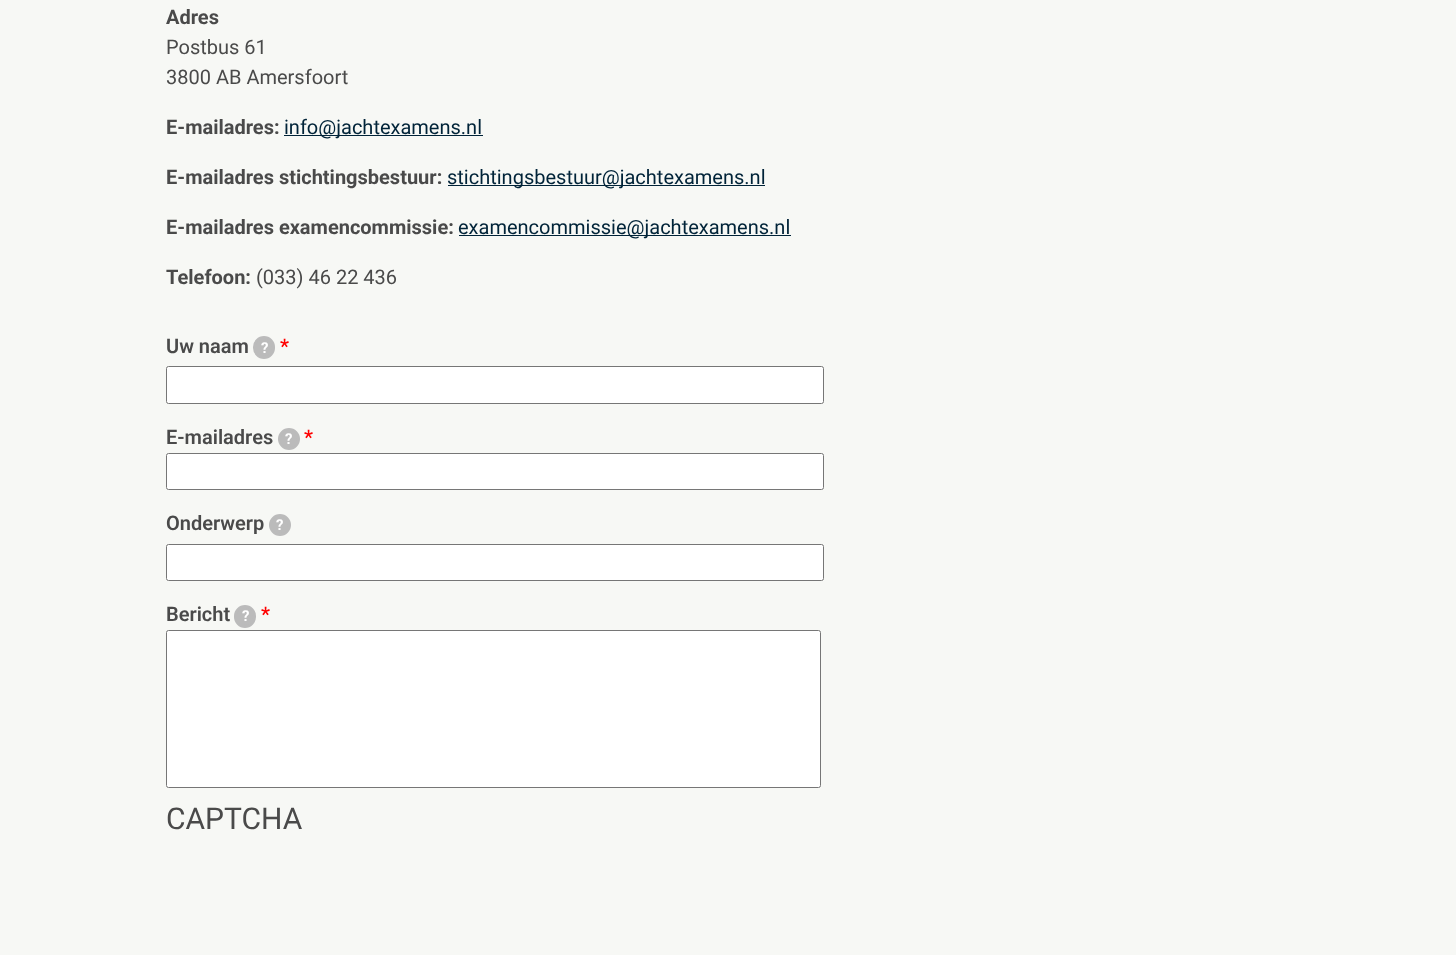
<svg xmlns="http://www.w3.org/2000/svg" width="1456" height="955">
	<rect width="100%" height="100%" fill="#F7F8F5" />
	<text x="166" y="24" font-family="Roboto" font-size="20" font-weight="700" fill="#4A4A4A">Adres</text>
	<g font-family="Roboto" font-size="20" fill="#4A4A4A">
		<text x="166" y="54">Postbus 61</text>
		<text x="166" y="84">3800 AB Amersfoort</text>
	</g>
	<text x="166" y="134" font-family="Roboto" font-size="20" font-weight="700" fill="#4A4A4A">E-mailadres:</text>
	<rect x="284" y="135" width="199" height="1" fill="#002338" />
	<text x="284" y="134" font-family="Roboto" font-size="20" fill="#002338">info@jachtexamens.nl</text>
	<text x="166" y="184" font-family="Roboto" font-size="20" font-weight="700" fill="#4A4A4A">E-mailadres stichtingsbestuur:</text>
	<rect x="448" y="185" width="317" height="1" fill="#002338" />
	<text x="447" y="184" font-family="Roboto" font-size="20" fill="#002338">stichtingsbestuur@jachtexamens.nl</text>
	<text x="166" y="234" font-family="Roboto" font-size="20" font-weight="700" fill="#4A4A4A">E-mailadres examencommissie:</text>
	<rect x="459" y="235" width="332" height="1" fill="#002338" />
	<text x="458" y="234" font-family="Roboto" font-size="20" fill="#002338">examencommissie@jachtexamens.nl</text>
	<text x="166" y="284" font-family="Roboto" font-size="20" font-weight="700" fill="#4A4A4A">Telefoon:</text>
	<text x="256" y="284" font-family="Roboto" font-size="20" fill="#4A4A4A">(033) 46 22 436</text>
	<text x="166" y="353" font-family="Roboto" font-size="20" font-weight="600" fill="#4A4A4A">Uw naam</text>
	<rect x="254.5" y="337.5" width="19" height="20" rx="9.5" fill="#BBBBBB" stroke="#BBBBBB" stroke-width="3" />
	<text x="261" y="353" font-family="Roboto" font-size="15" font-weight="700" fill="#FFFFFF">?</text>
	<text x="280" y="353" font-family="Roboto" font-size="20" font-weight="600" fill="#FF0000">*</text>
	<rect x="166.5" y="366.5" width="657" height="37" rx="2" fill="#FFFFFF" stroke="#767676" />
	<text x="166" y="444" font-family="Roboto" font-size="20" font-weight="600" fill="#4A4A4A">E-mailadres</text>
	<circle cx="289" cy="439" r="9.5" fill="#BBBBBB" stroke="#BBBBBB" stroke-width="3" />
	<text x="285" y="444" font-family="Roboto" font-size="15" font-weight="700" fill="#FFFFFF">?</text>
	<text x="304" y="444" font-family="Roboto" font-size="20" font-weight="600" fill="#FF0000">*</text>
	<rect x="166.5" y="453.5" width="657" height="36" rx="2" fill="#FFFFFF" stroke="#767676" />
	<text x="166" y="530" font-family="Roboto" font-size="20" font-weight="600" fill="#4A4A4A">Onderwerp</text>
	<circle cx="280" cy="525" r="9.5" fill="#BBBBBB" stroke="#BBBBBB" stroke-width="3" />
	<text x="276" y="530" font-family="Roboto" font-size="15" font-weight="700" fill="#FFFFFF">?</text>
	<rect x="166.5" y="544.5" width="657" height="36" rx="2" fill="#FFFFFF" stroke="#767676" />
	<text x="166" y="621" font-family="Roboto" font-size="20" font-weight="600" fill="#4A4A4A">Bericht</text>
	<rect x="235.5" y="606.5" width="19" height="20" rx="9.5" fill="#BBBBBB" stroke="#BBBBBB" stroke-width="3" />
	<text x="242" y="621" font-family="Roboto" font-size="15" font-weight="700" fill="#FFFFFF">?</text>
	<text x="261" y="621" font-family="Roboto" font-size="20" font-weight="600" fill="#FF0000">*</text>
	<rect x="166.5" y="630.5" width="654" height="157" rx="2" fill="#FFFFFF" stroke="#767676" />
	<text x="166" y="829" font-family="Roboto" font-size="30" fill="#4A4A4A">CAPTCHA</text>
</svg>
